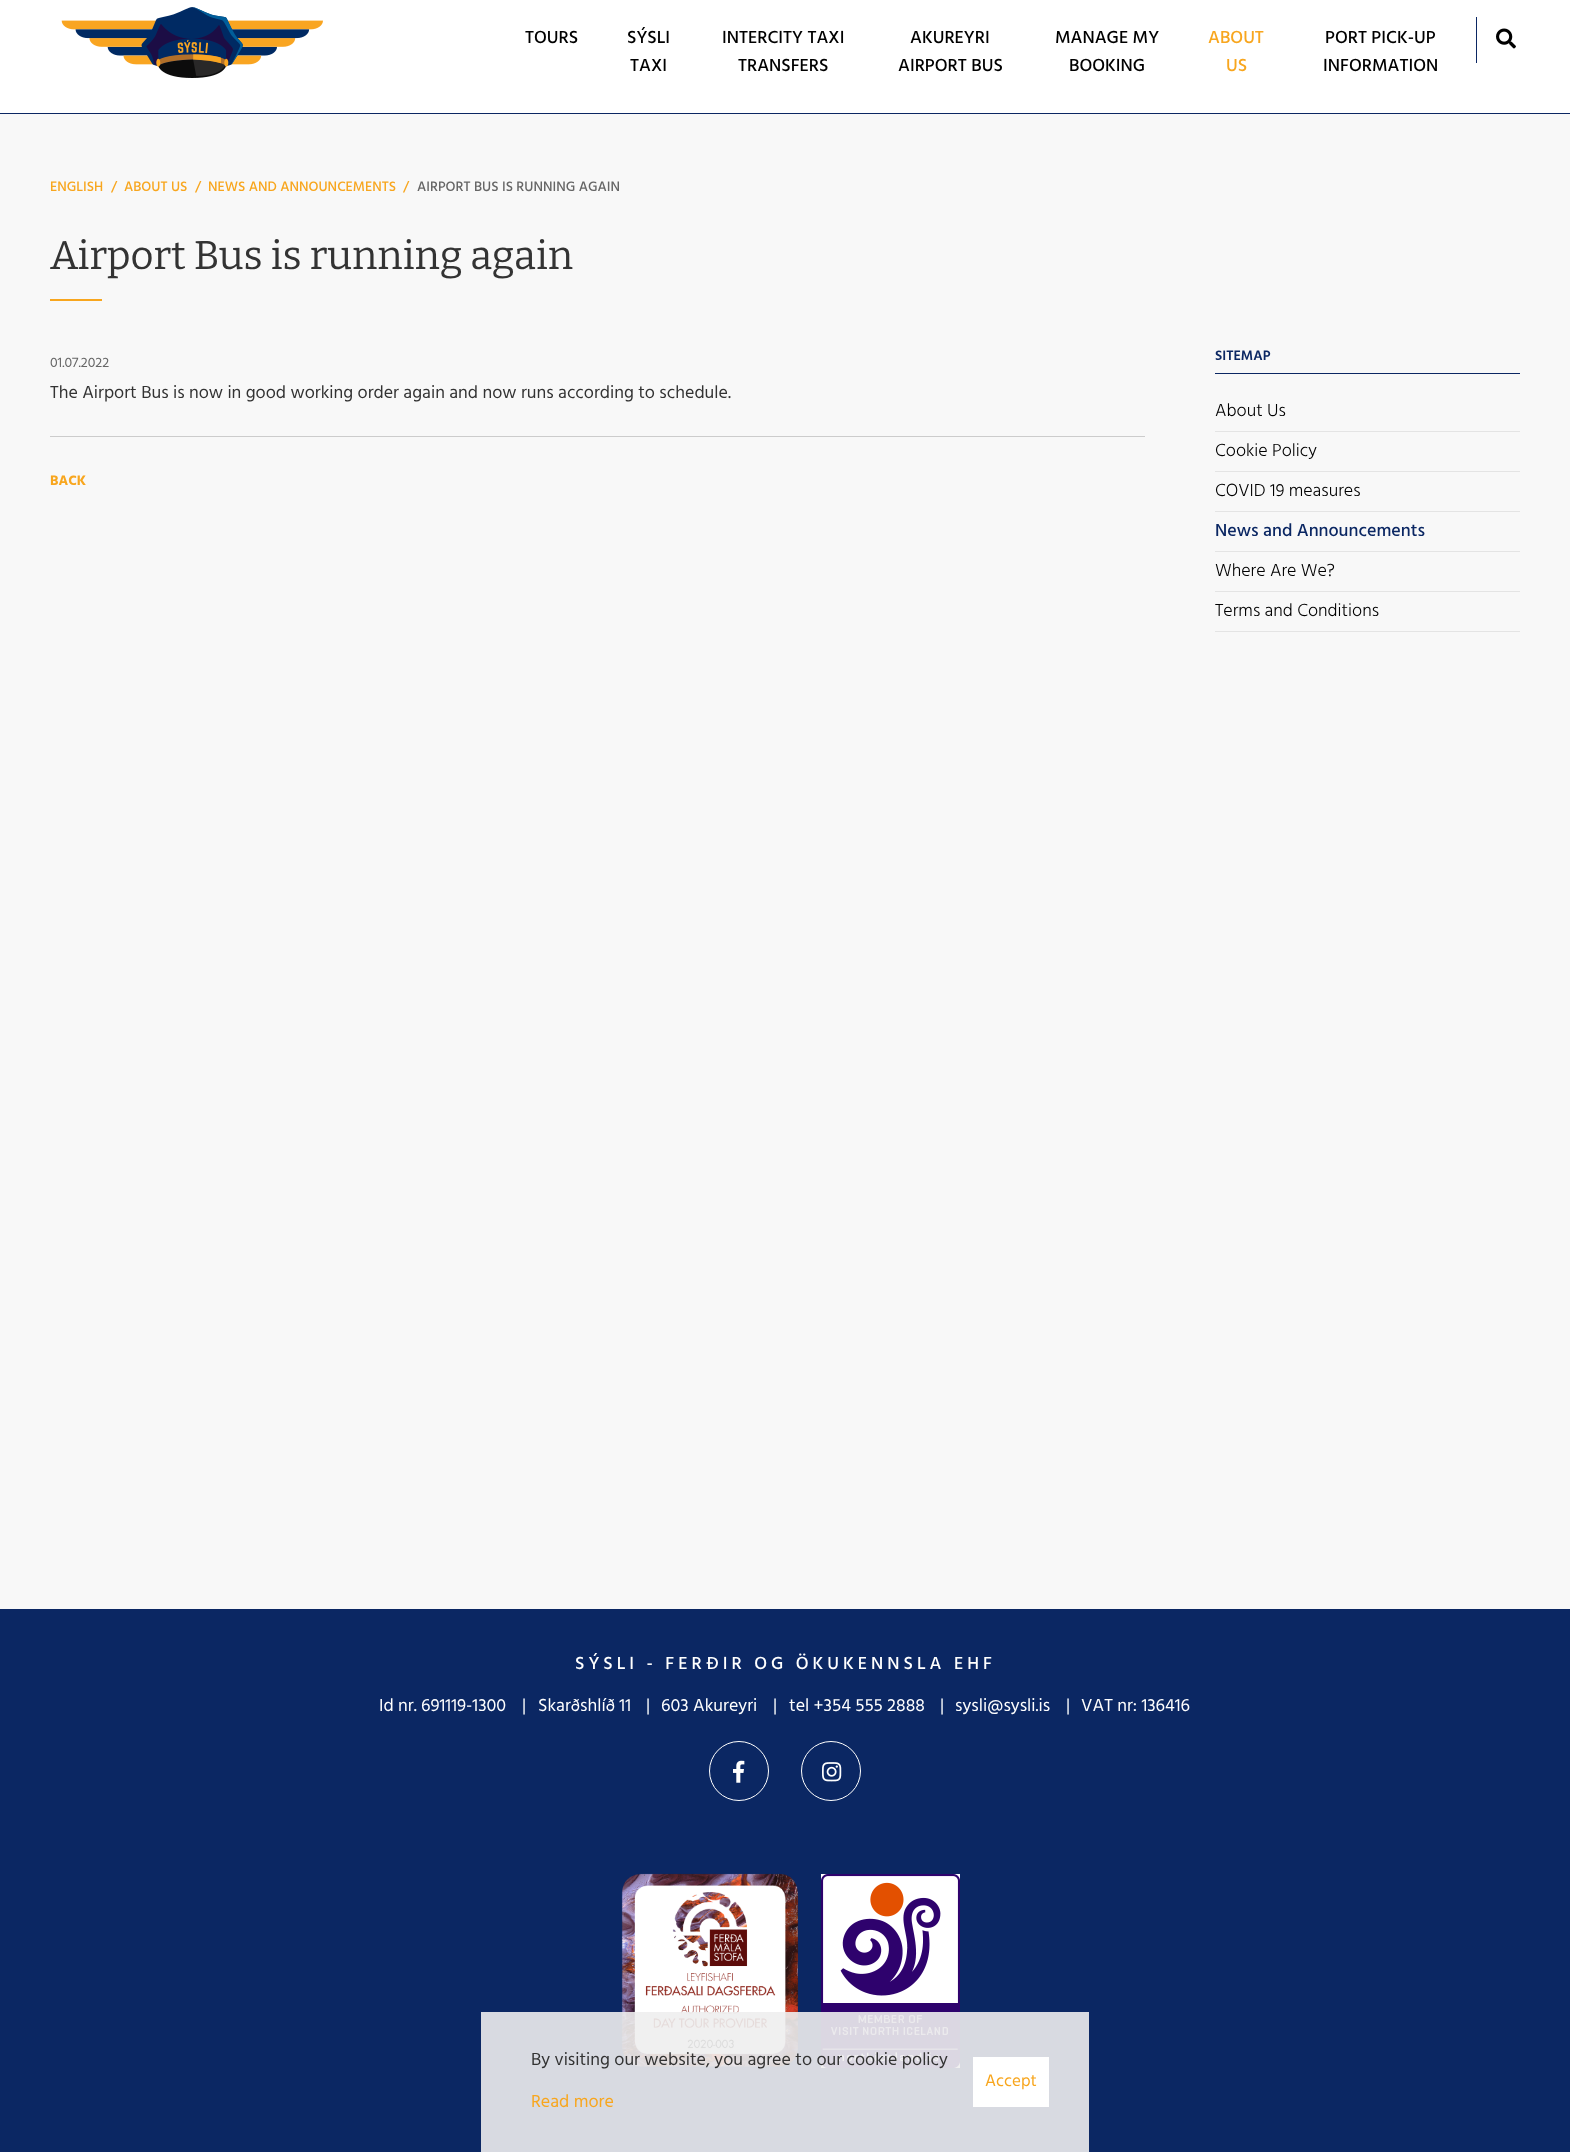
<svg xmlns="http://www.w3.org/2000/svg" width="1570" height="2152">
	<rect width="100%" height="100%" fill="#F8F8F8" />
	<rect x="0" y="0" width="1570" height="113" fill="#FFFFFF" />
	<rect x="0" y="113" width="1570" height="1" fill="#0B2763" />
	<image x="61" y="7" width="262" height="71" href="assets/img1.png" />
	<g font-family="Hind" font-size="18" font-weight="500" fill="#000000">
		<text x="525" y="43">TOURS</text>
		<text x="627" y="43">SÝSLI</text>
		<text x="630" y="71">TAXI</text>
		<text x="722" y="43">INTERCITY TAXI</text>
		<text x="738" y="71">TRANSFERS</text>
		<text x="910" y="43">AKUREYRI</text>
		<text x="898" y="71">AIRPORT BUS</text>
		<text x="1055" y="43">MANAGE MY</text>
		<text x="1069" y="71">BOOKING</text>
	</g>
	<g font-family="Hind" font-size="18" font-weight="500" fill="#F8A61E">
		<text x="1208" y="43">ABOUT</text>
		<text x="1226" y="71">US</text>
	</g>
	<g font-family="Hind" font-size="18" font-weight="500" fill="#000000">
		<text x="1325" y="43">PORT PICK-UP</text>
		<text x="1323" y="71">INFORMATION</text>
	</g>
	<rect x="1476" y="17" width="1" height="46" fill="#0B2763" />
	<image x="1496" y="28" width="20" height="21" href="assets/img2.png" />
	<g font-family="Hind" font-size="14" font-weight="500" fill="#F8A61E">
		<text x="50" y="191">ENGLISH</text>
		<text x="111" y="191">/</text>
		<text x="124" y="191">ABOUT US</text>
		<text x="195" y="191">/</text>
		<text x="208" y="191">NEWS AND ANNOUNCEMENTS</text>
		<text x="403" y="191">/</text>
	</g>
	<text x="417" y="191" font-family="Hind" font-size="14" font-weight="500" fill="#666666">AIRPORT BUS IS RUNNING AGAIN</text>
	<text x="50" y="269" font-family="Bitter" font-size="40" font-weight="100" fill="#333333">Airport Bus is running again</text>
	<rect x="50" y="299" width="52" height="2" fill="#F8A61E" />
	<text x="50" y="367" font-family="Hind" font-size="14" fill="#666666">01.07.2022</text>
	<text x="50" y="398" font-family="Hind" font-size="18" fill="#333333">The Airport Bus is now in good working order again and now runs according to schedule.</text>
	<rect x="50" y="436" width="1095" height="1" fill="#CCCCCC" />
	<text x="50" y="485" font-family="Hind" font-size="14" font-weight="700" fill="#F8A61E">BACK</text>
	<rect x="1215" y="373" width="305" height="1" fill="#0B2763" />
	<text x="1215" y="360" font-family="Hind" font-size="14" font-weight="600" fill="#0B2763">SITEMAP</text>
	<rect x="1215" y="431" width="305" height="1" fill="#E4E4E4" />
	<text x="1215" y="416" font-family="Hind" font-size="18" font-weight="300" fill="#000000">About Us</text>
	<rect x="1215" y="471" width="305" height="1" fill="#E4E4E4" />
	<text x="1215" y="456" font-family="Hind" font-size="18" font-weight="300" fill="#000000">Cookie Policy</text>
	<rect x="1215" y="511" width="305" height="1" fill="#E4E4E4" />
	<text x="1215" y="496" font-family="Hind" font-size="18" font-weight="300" fill="#000000">COVID 19 measures</text>
	<rect x="1215" y="551" width="305" height="1" fill="#E4E4E4" />
	<text x="1215" y="536" font-family="Hind" font-size="18" font-weight="500" fill="#0B2763">News and Announcements</text>
	<rect x="1215" y="591" width="305" height="1" fill="#E4E4E4" />
	<text x="1215" y="576" font-family="Hind" font-size="18" font-weight="300" fill="#000000">Where Are We?</text>
	<rect x="1215" y="631" width="305" height="1" fill="#E4E4E4" />
	<text x="1215" y="616" font-family="Hind" font-size="18" font-weight="300" fill="#000000">Terms and Conditions</text>
	<rect x="0" y="1609" width="1570" height="543" fill="#0B2763" />
	<text x="575" y="1669" font-family="Hind" font-size="18" font-weight="500" letter-spacing="4" fill="#FFFFFF">SÝSLI - FERÐIR OG ÖKUKENNSLA EHF</text>
	<g font-family="Hind" font-size="18" fill="#FFFFFF">
		<text x="379" y="1711">Id nr. 691119-1300</text>
		<text x="522" y="1711">|</text>
		<text x="538" y="1711">Skarðshlíð 11</text>
		<text x="646" y="1711">|</text>
		<text x="661" y="1711">603 Akureyri</text>
		<text x="773" y="1711">|</text>
		<text x="789" y="1711">tel +354 555 2888</text>
		<text x="940" y="1711">|</text>
		<text x="955" y="1711">sysli@sysli.is</text>
		<text x="1066" y="1711">|</text>
		<text x="1081" y="1711">VAT nr: 136416</text>
	</g>
	<circle cx="739" cy="1771" r="29.5" fill="none" stroke="#FFFFFF" />
	<image x="733" y="1760" width="12" height="23" href="assets/img3.png" />
	<circle cx="831" cy="1771" r="29.5" fill="none" stroke="#FFFFFF" />
	<image x="822" y="1762" width="20" height="20" href="assets/img4.png" />
	<image x="621" y="1873" width="177" height="194" href="assets/img5.png" />
	<image x="821" y="1874" width="139" height="194" href="assets/img6.png" />
	<rect x="481" y="2012" width="608" height="140" fill="#EEEEEE" fill-opacity="0.9" />
	<text x="531" y="2065" font-family="Hind" font-size="18" fill="#333333">By visiting our website, you agree to our cookie policy</text>
	<text x="531" y="2107" font-family="Hind" font-size="18" fill="#F8A61E">Read more</text>
	<rect x="973" y="2057" width="76" height="50" fill="#FFFFFF" />
	<text x="985" y="2086" font-family="Hind" font-size="17" fill="#F8A61E">Accept</text>
</svg>
